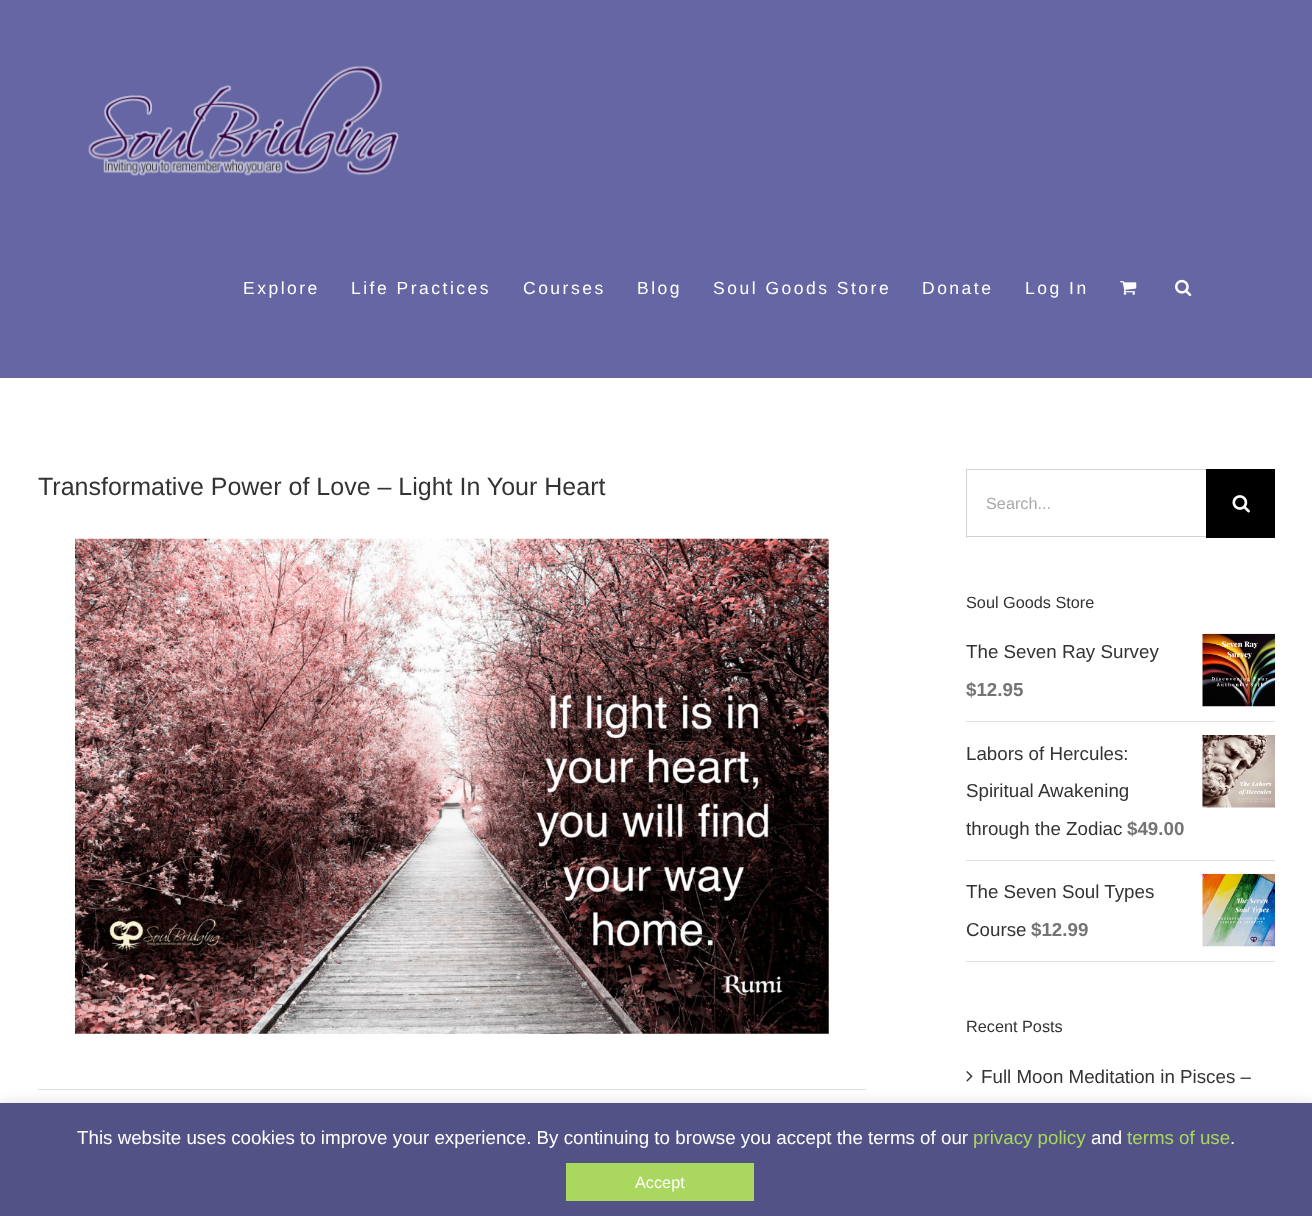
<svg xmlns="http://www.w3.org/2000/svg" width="1312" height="1216">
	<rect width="100%" height="100%" fill="#FFFFFF" />
	<rect x="0" y="0" width="1312" height="378" fill="#6666A4" />
	<image x="88" y="65" width="311" height="111" href="assets/img1.png" />
	<g font-family="Liberation Sans" font-size="17.5" letter-spacing="2.5" fill="#FFFFFF">
		<text x="243" y="294">Explore</text>
		<text x="351" y="294">Life Practices</text>
		<text x="523" y="294">Courses</text>
		<text x="637" y="294">Blog</text>
		<text x="713" y="294">Soul Goods Store</text>
		<text x="922" y="294">Donate</text>
		<text x="1025" y="294">Log In</text>
	</g>
	<image x="1120" y="281" width="17" height="14" href="assets/img2.png" />
	<image x="1175" y="279" width="17" height="17" href="assets/img3.png" />
	<text x="38" y="495" font-family="Liberation Sans" font-size="25" fill="#333333">Transformative Power of Love – Light In Your Heart</text>
	<image x="75" y="538" width="754" height="496" href="assets/img4.png" />
	<rect x="38" y="1089" width="828" height="1" fill="#E0DEDE" />
	<rect x="966" y="469" width="240" height="1" fill="#D2D2D2" />
	<rect x="966" y="536" width="240" height="1" fill="#D2D2D2" />
	<rect x="966" y="469" width="1" height="69" fill="#D2D2D2" />
	<text x="986" y="509" font-family="Liberation Sans" font-size="16.25" fill="#AAA9A9">Search...</text>
	<rect x="1206" y="469" width="69" height="69" fill="#000000" />
	<image x="1232" y="495" width="18" height="18" href="assets/img5.png" />
	<text x="966" y="608" font-family="Liberation Sans" font-size="16.25" fill="#333333">Soul Goods Store</text>
	<rect x="966" y="721" width="309" height="1" fill="#E0DEDE" />
	<text x="966" y="658" font-family="Liberation Sans" font-size="18.75" fill="#333333">The Seven Ray Survey</text>
	<image x="1202" y="633" width="73" height="74" href="assets/img6.png" />
	<text x="966" y="696" font-family="Liberation Sans" font-size="18.75" font-weight="700" fill="#747474">$12.95</text>
	<rect x="966" y="860" width="309" height="1" fill="#E0DEDE" />
	<text x="966" y="760" font-family="Liberation Sans" font-size="18.75" fill="#333333">Labors of Hercules:</text>
	<image x="1202" y="735" width="73" height="73" href="assets/img7.png" />
	<g font-family="Liberation Sans" font-size="18.75" fill="#333333">
		<text x="966" y="797">Spiritual Awakening</text>
		<text x="966" y="835">through the Zodiac</text>
	</g>
	<text x="1127" y="835" font-family="Liberation Sans" font-size="18.75" font-weight="700" fill="#747474">$49.00</text>
	<rect x="966" y="961" width="309" height="1" fill="#E0DEDE" />
	<text x="966" y="898" font-family="Liberation Sans" font-size="18.75" fill="#333333">The Seven Soul Types</text>
	<image x="1202" y="873" width="73" height="74" href="assets/img8.png" />
	<text x="966" y="936" font-family="Liberation Sans" font-size="18.75" fill="#333333">Course</text>
	<text x="1031" y="936" font-family="Liberation Sans" font-size="18.75" font-weight="700" fill="#747474">$12.99</text>
	<text x="966" y="1032" font-family="Liberation Sans" font-size="16.25" fill="#333333">Recent Posts</text>
	<image x="966" y="1071" width="7" height="11" href="assets/img9.png" />
	<text x="981" y="1083" font-family="Liberation Sans" font-size="18.75" fill="#333333">Full Moon Meditation in Pisces –</text>
	<rect x="0" y="1101" width="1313" height="114" fill="#ACABAB" fill-opacity="0.3" filter="blur(6px)" />
	<rect x="0" y="1103" width="1312" height="113" fill="#525287" />
	<text x="77" y="1144" font-family="Liberation Sans" font-size="18.75" fill="#FFFFFF">This website uses cookies to improve your experience. By continuing to browse you accept the terms of our</text>
	<text x="973" y="1144" font-family="Liberation Sans" font-size="18.75" fill="#AAD75D">privacy policy</text>
	<text x="1091" y="1144" font-family="Liberation Sans" font-size="18.75" fill="#FFFFFF">and</text>
	<text x="1127" y="1144" font-family="Liberation Sans" font-size="18.75" fill="#AAD75D">terms of use</text>
	<text x="1230" y="1144" font-family="Liberation Sans" font-size="18.75" fill="#FFFFFF">.</text>
	<rect x="566" y="1163" width="188" height="38" fill="#AAD75D" />
	<text x="635" y="1188" font-family="Liberation Sans" font-size="16.25" fill="#FFFFFF">Accept</text>
</svg>
